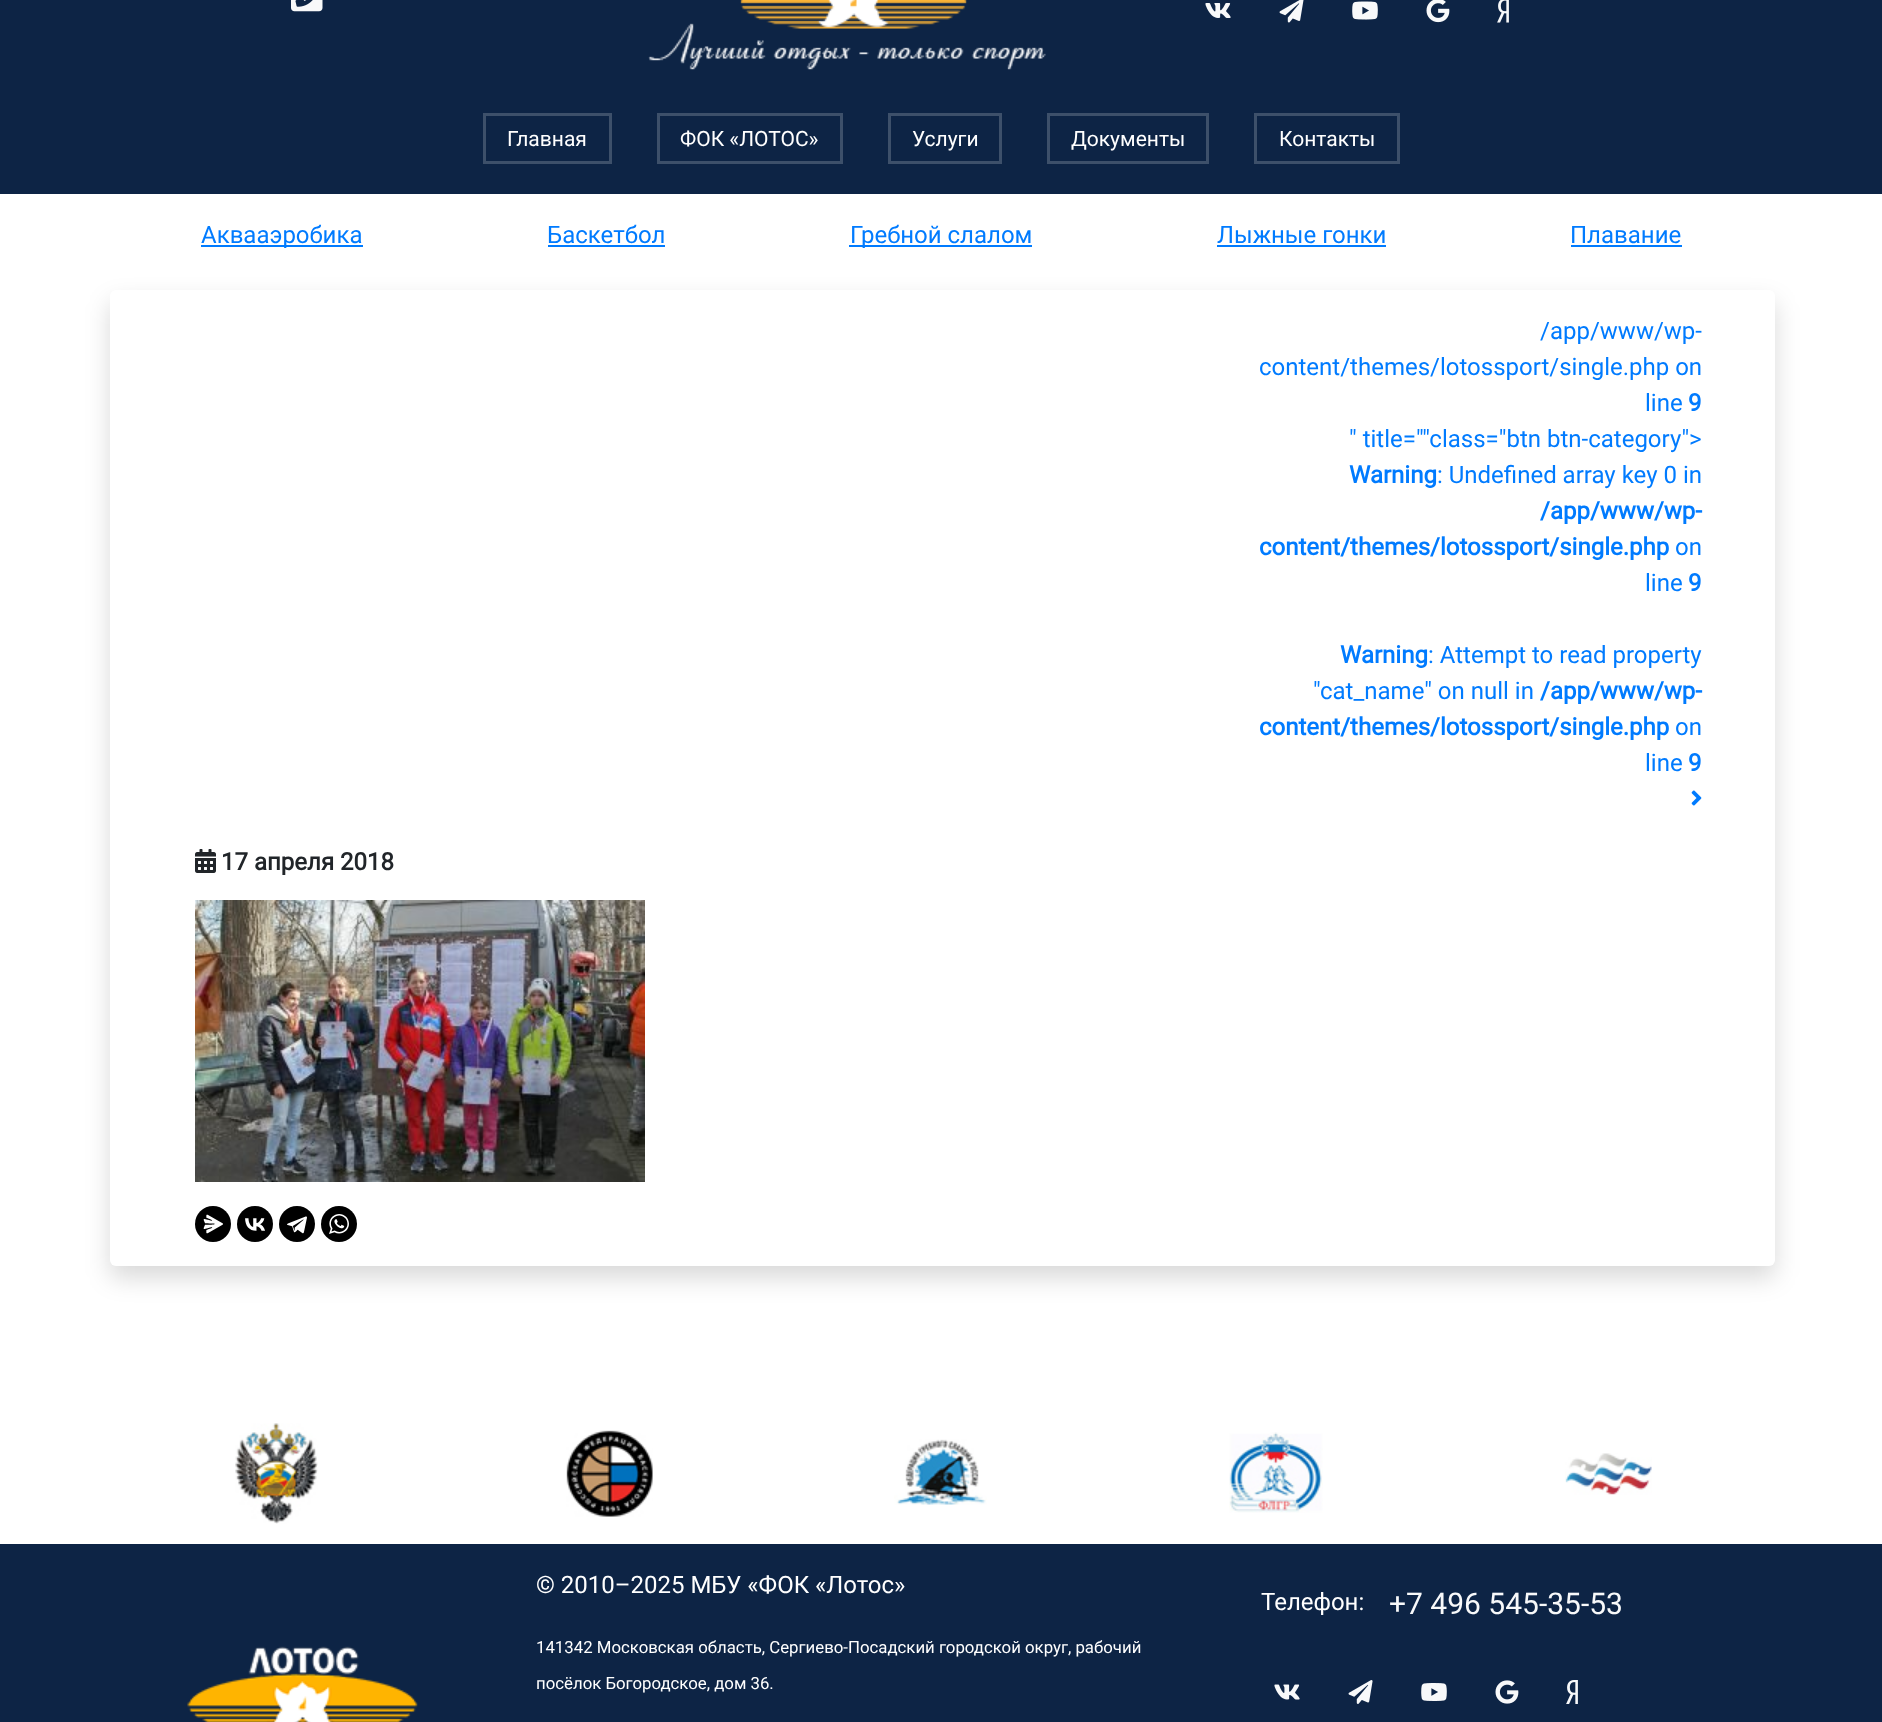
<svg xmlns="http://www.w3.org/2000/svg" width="1882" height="1722">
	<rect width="100%" height="100%" fill="#FFFFFF" />
	<rect x="0" y="0" width="1882" height="194" fill="#0D2445" />
	<image x="291" y="0" width="32" height="12" href="assets/img1.png" />
	<image x="648" y="0" width="398" height="70" href="assets/img2.png" />
	<image x="1205" y="3" width="26" height="15" href="assets/img3.png" />
	<image x="1279" y="0" width="25" height="23" href="assets/img4.png" />
	<image x="1352" y="1" width="26" height="19" href="assets/img5.png" />
	<image x="1426" y="0" width="24" height="23" href="assets/img6.png" />
	<image x="1497" y="0" width="12" height="23" href="assets/img7.png" />
	<rect x="484.5" y="114.5" width="126" height="48" fill="none" stroke="#3D506A" stroke-width="3" />
	<text x="507" y="146" font-family="Roboto" font-size="21" fill="#FFFFFF">Главная</text>
	<rect x="658.5" y="114.5" width="183" height="48" fill="none" stroke="#3D506A" stroke-width="3" />
	<text x="680" y="146" font-family="Roboto" font-size="21" fill="#FFFFFF">ФОК «ЛОТОС»</text>
	<rect x="889.5" y="114.5" width="111" height="48" fill="none" stroke="#3D506A" stroke-width="3" />
	<text x="912" y="146" font-family="Roboto" font-size="21" fill="#FFFFFF">Услуги</text>
	<rect x="1048.5" y="114.5" width="159" height="48" fill="none" stroke="#3D506A" stroke-width="3" />
	<text x="1071" y="146" font-family="Roboto" font-size="21" fill="#FFFFFF">Документы</text>
	<rect x="1255.5" y="114.5" width="143" height="48" fill="none" stroke="#3D506A" stroke-width="3" />
	<text x="1279" y="146" font-family="Roboto" font-size="21" fill="#FFFFFF">Контакты</text>
	<rect x="201" y="245" width="162" height="2" fill="#007BFF" />
	<g font-family="Roboto" font-size="24" fill="#007BFF">
		<text x="201" y="243">Аквааэробика</text>
		<text x="547" y="243">Баскетбол</text>
	</g>
	<rect x="548" y="245" width="117" height="2" fill="#007BFF" />
	<rect x="849" y="245" width="183" height="2" fill="#007BFF" />
	<g font-family="Roboto" font-size="24" fill="#007BFF">
		<text x="850" y="243">Гребной слалом</text>
		<text x="1217" y="243">Лыжные гонки</text>
	</g>
	<rect x="1217" y="245" width="169" height="2" fill="#007BFF" />
	<text x="1570" y="243" font-family="Roboto" font-size="24" fill="#007BFF">Плавание</text>
	<rect x="1571" y="245" width="111" height="2" fill="#007BFF" />
	<rect x="110" y="302" width="1665" height="976" rx="6" fill="#000000" fill-opacity="0.15" filter="blur(12px)" />
	<rect x="110" y="290" width="1665" height="976" rx="6" fill="#FFFFFF" />
	<g font-family="Roboto" font-size="24" fill="#007BFF">
		<text x="1540" y="339">/app/www/wp-</text>
		<text x="1259" y="375">content/themes/lotossport/single.php on</text>
		<text x="1645" y="411">line</text>
	</g>
	<text x="1688" y="411" font-family="Roboto" font-size="24" font-weight="700" fill="#007BFF">9</text>
	<text x="1349" y="447" font-family="Roboto" font-size="24" fill="#007BFF">" title=""class="btn btn-category"&gt;</text>
	<text x="1349" y="483" font-family="Roboto" font-size="24" font-weight="700" fill="#007BFF">Warning</text>
	<text x="1437" y="483" font-family="Roboto" font-size="24" fill="#007BFF">: Undefined array key 0 in</text>
	<g font-family="Roboto" font-size="24" font-weight="700" fill="#007BFF">
		<text x="1540" y="519">/app/www/wp-</text>
		<text x="1259" y="555">content/themes/lotossport/single.php</text>
	</g>
	<g font-family="Roboto" font-size="24" fill="#007BFF">
		<text x="1675" y="555">on</text>
		<text x="1645" y="591">line</text>
	</g>
	<g font-family="Roboto" font-size="24" font-weight="700" fill="#007BFF">
		<text x="1688" y="591">9</text>
		<text x="1340" y="663">Warning</text>
	</g>
	<g font-family="Roboto" font-size="24" fill="#007BFF">
		<text x="1428" y="663">: Attempt to read property</text>
		<text x="1313" y="699">"cat_name" on null in</text>
	</g>
	<g font-family="Roboto" font-size="24" font-weight="700" fill="#007BFF">
		<text x="1540" y="699">/app/www/wp-</text>
		<text x="1259" y="735">content/themes/lotossport/single.php</text>
	</g>
	<g font-family="Roboto" font-size="24" fill="#007BFF">
		<text x="1675" y="735">on</text>
		<text x="1645" y="771">line</text>
	</g>
	<text x="1688" y="771" font-family="Roboto" font-size="24" font-weight="700" fill="#007BFF">9</text>
	<image x="1691" y="790" width="11" height="16" href="assets/img8.png" />
	<image x="195" y="849" width="21" height="24" href="assets/img9.png" />
	<text x="221" y="870" font-family="Roboto" font-size="24" font-weight="700" fill="#212529">17 апреля 2018</text>
	<image x="195" y="900" width="450" height="282" href="assets/img10.png" />
	<circle cx="213" cy="1224" r="18" fill="#000000" />
	<image x="203" y="1214" width="20" height="20" href="assets/img11.png" />
	<circle cx="255" cy="1224" r="18" fill="#000000" />
	<image x="245" y="1218" width="20" height="13" href="assets/img12.png" />
	<circle cx="297" cy="1224" r="18" fill="#000000" />
	<image x="287" y="1216" width="20" height="18" href="assets/img13.png" />
	<circle cx="339" cy="1224" r="18" fill="#000000" />
	<image x="329" y="1214" width="20" height="20" href="assets/img14.png" />
	<image x="235" y="1423" width="83" height="101" href="assets/img15.png" />
	<image x="566" y="1430" width="87" height="87" href="assets/img16.png" />
	<image x="894" y="1439" width="93" height="66" href="assets/img17.png" />
	<image x="1229" y="1432" width="94" height="81" href="assets/img18.png" />
	<image x="1565" y="1453" width="87" height="42" href="assets/img19.png" />
	<rect x="0" y="1544" width="1882" height="178" fill="#0D2445" />
	<text x="536" y="1593" font-family="Roboto" font-size="24" fill="#FFFFFF">© 2010–2025 МБУ «ФОК «Лотос»</text>
	<g font-family="Roboto" font-size="16.8" fill="#FFFFFF">
		<text x="536" y="1653">141342 Московская область, Сергиево-Посадский городской округ, рабочий</text>
		<text x="536" y="1689">посёлок Богородское, дом 36.</text>
	</g>
	<text x="1261" y="1610" font-family="Roboto" font-size="24" fill="#FFFFFF">Телефон:</text>
	<text x="1389" y="1614" font-family="Roboto" font-size="30" fill="#F8F9FA">+7 496 545-35-53</text>
	<image x="1274" y="1684" width="26" height="16" href="assets/img20.png" />
	<image x="1348" y="1680" width="25" height="24" href="assets/img21.png" />
	<image x="1421" y="1683" width="26" height="18" href="assets/img22.png" />
	<image x="1495" y="1680" width="24" height="24" href="assets/img23.png" />
	<image x="1566" y="1680" width="12" height="24" href="assets/img24.png" />
	<image x="187" y="1646" width="231" height="76" href="assets/img25.png" />
</svg>
